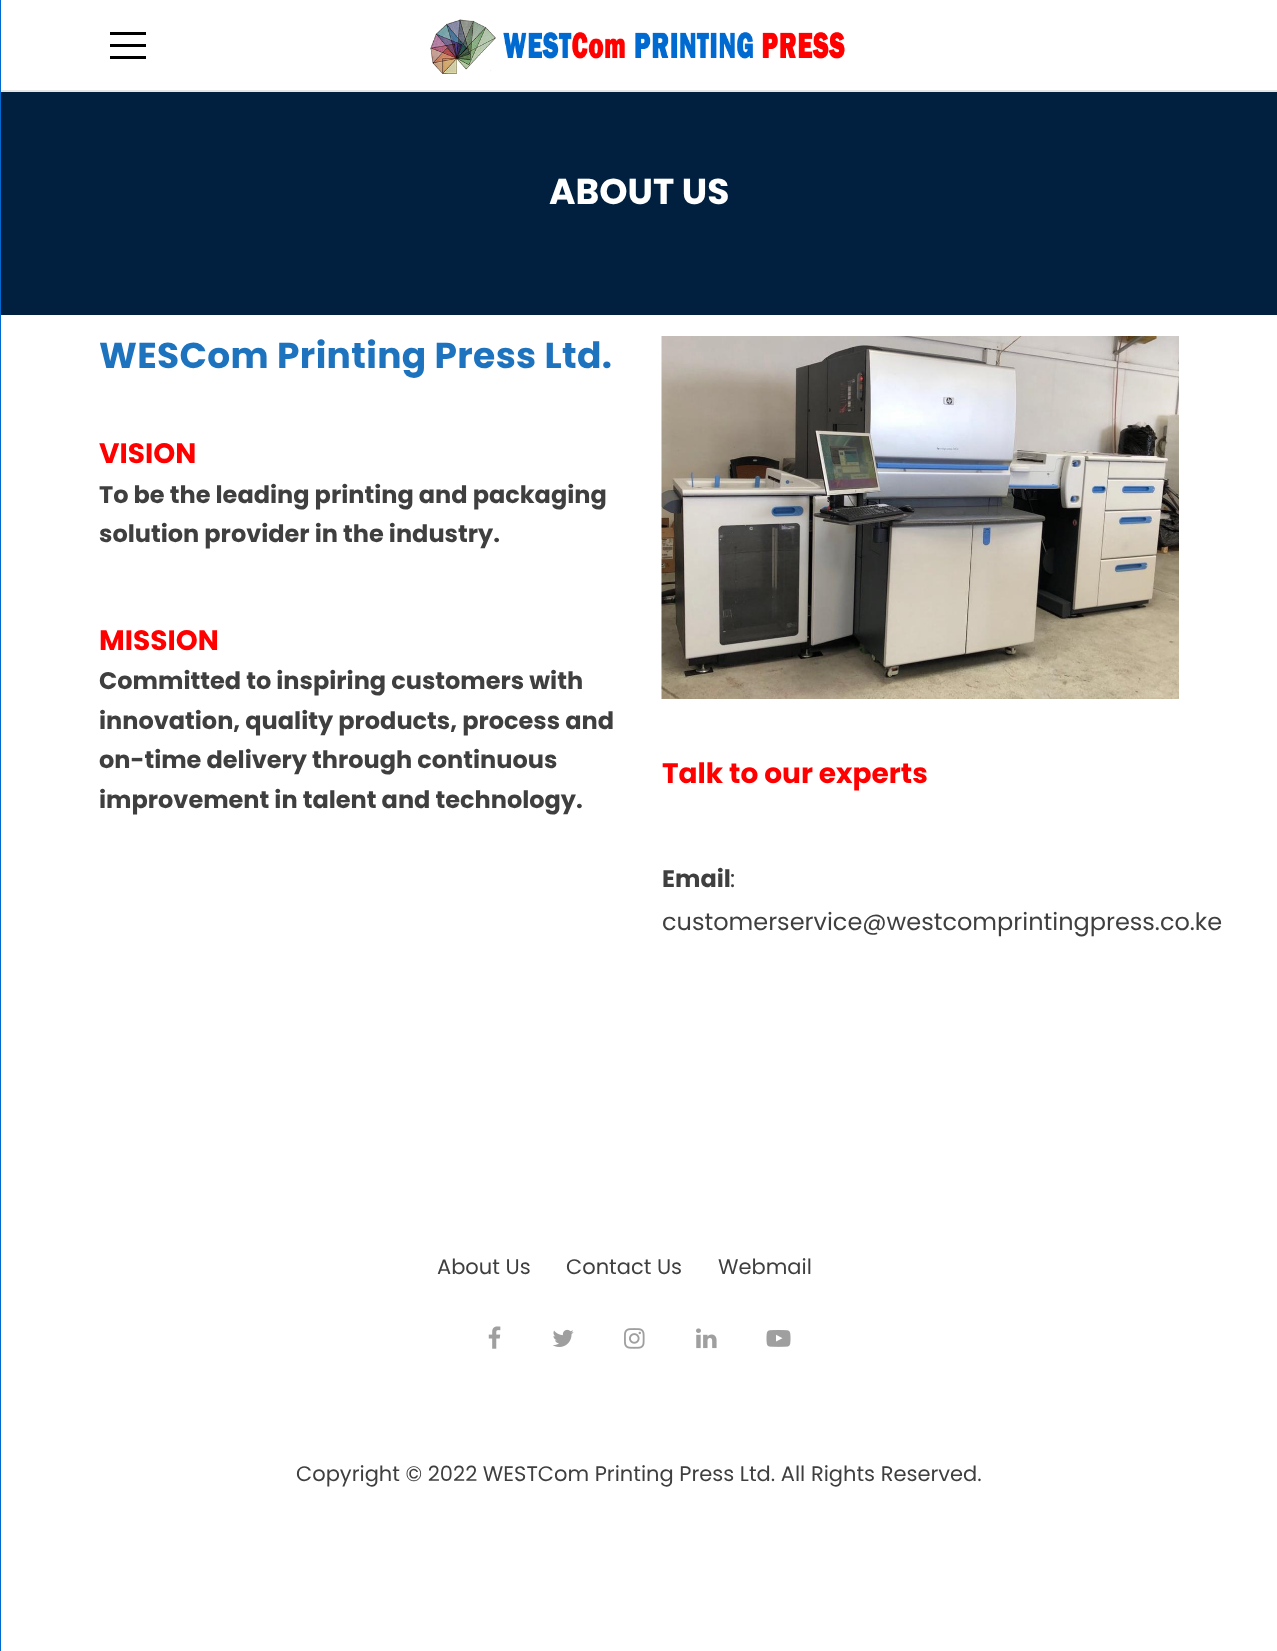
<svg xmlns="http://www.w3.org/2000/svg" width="1277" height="1651">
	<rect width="100%" height="100%" fill="#FFFFFF" />
	<rect x="0" y="90" width="1277" height="2" fill="#E5E5E5" />
	<rect x="0" y="0" width="1" height="1651" fill="#006AD0" />
	<rect x="110" y="32" width="36" height="3" fill="#000000" />
	<rect x="110" y="44" width="36" height="3" fill="#000000" />
	<rect x="110" y="56" width="36" height="3" fill="#000000" />
	<image x="430" y="19" width="415" height="55" href="assets/img1.png" />
	<rect x="1" y="92" width="1276" height="223" fill="#011F3E" />
	<text x="549" y="204" font-family="Poppins" font-size="36" font-weight="700" fill="#FFFFFF">ABOUT US</text>
	<text x="99" y="368" font-family="Poppins" font-size="36" font-weight="700" letter-spacing="0.35" fill="#1E73BE">WESCom Printing Press Ltd.</text>
	<text x="99" y="463" font-family="Poppins" font-size="28" font-weight="700" fill="#FF0000">VISION</text>
	<g font-family="Poppins" font-size="24" font-weight="700" fill="#3F3F3F">
		<text x="99" y="503">To be the leading printing and packaging</text>
		<text x="99" y="542">solution provider in the industry.</text>
	</g>
	<text x="99" y="650" font-family="Poppins" font-size="28" font-weight="700" fill="#FF0000">MISSION</text>
	<g font-family="Poppins" font-size="24" font-weight="700" fill="#3F3F3F">
		<text x="99" y="689">Committed to inspiring customers with</text>
		<text x="99" y="729">innovation, quality products, process and</text>
		<text x="99" y="768">on-time delivery through continuous</text>
		<text x="99" y="808">improvement in talent and technology.</text>
	</g>
	<image x="661" y="336" width="518" height="363" href="assets/img2.png" />
	<text x="662" y="783" font-family="Poppins" font-size="28" font-weight="700" fill="#FF0000">Talk to our experts</text>
	<text x="662" y="887" font-family="Poppins" font-size="24" font-weight="700" fill="#3F3F3F">Email</text>
	<g font-family="Poppins" font-size="24" fill="#3F3F3F">
		<text x="730" y="887">:</text>
		<text x="662" y="930">customerservice@westcomprintingpress.co.ke</text>
	</g>
	<g font-family="Poppins" font-size="21" fill="#3F3F3F">
		<text x="437" y="1274">About Us</text>
		<text x="566" y="1274">Contact Us</text>
		<text x="718" y="1274">Webmail</text>
	</g>
	<image x="488" y="1326" width="13" height="23" href="assets/img3.png" />
	<image x="552" y="1329" width="22" height="18" href="assets/img4.png" />
	<image x="624" y="1328" width="21" height="21" href="assets/img5.png" />
	<image x="696" y="1328" width="21" height="21" href="assets/img6.png" />
	<image x="766" y="1330" width="25" height="17" href="assets/img7.png" />
	<text x="296" y="1481" font-family="Poppins" font-size="21" fill="#3F3F3F">Copyright © 2022 WESTCom Printing Press Ltd. All Rights Reserved.</text>
</svg>
